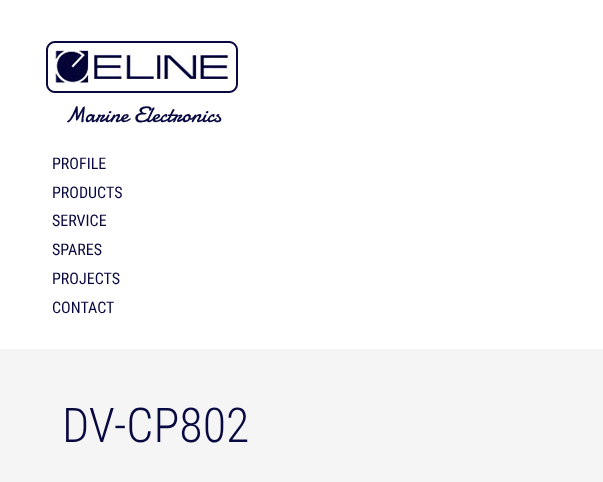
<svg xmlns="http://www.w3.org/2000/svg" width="603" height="482">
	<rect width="100%" height="100%" fill="#FFFFFF" />
	<image x="46" y="41" width="192" height="52" href="assets/img1.png" />
	<text x="65" y="122" font-family="Damion" font-size="22.5" fill="#090941">Marine Electronics</text>
	<g font-family="Roboto Condensed" font-size="16" fill="#090941">
		<text x="52" y="169">PROFILE</text>
		<text x="52" y="198">PRODUCTS</text>
		<text x="52" y="226">SERVICE</text>
		<text x="52" y="255">SPARES</text>
		<text x="52" y="284">PROJECTS</text>
		<text x="52" y="313">CONTACT</text>
	</g>
	<rect x="0" y="349" width="603" height="133" fill="#F5F5F5" />
	<text x="62" y="442" font-family="Roboto Condensed" font-size="48" font-weight="300" fill="#090941">DV-CP802</text>
</svg>
